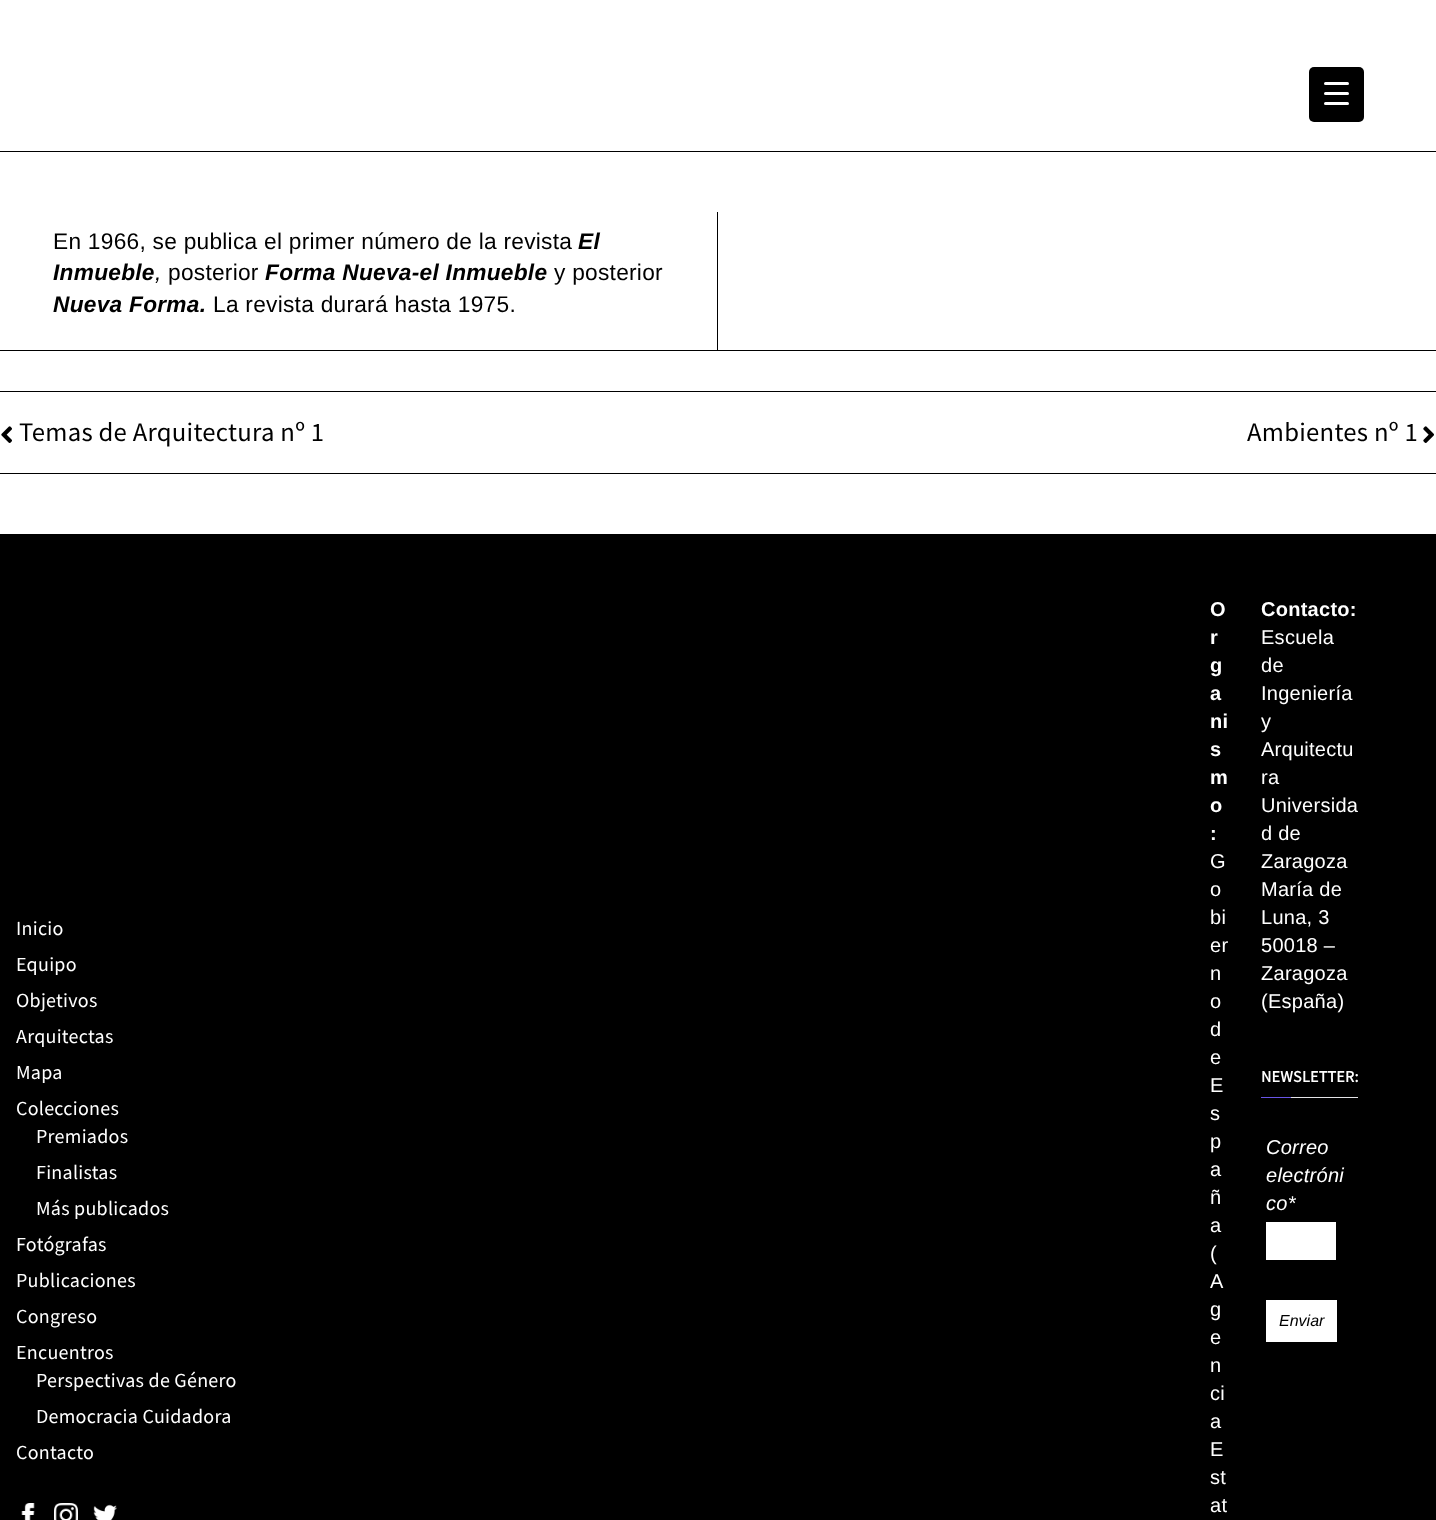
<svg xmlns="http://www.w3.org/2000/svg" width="1436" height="1520">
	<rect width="100%" height="100%" fill="#000000" />
	<rect x="0" y="0" width="1436" height="151" fill="#FFFFFF" />
	<rect x="1309" y="67" width="55" height="55" rx="5" fill="#000000" />
	<rect x="1324" y="92" width="25" height="3" rx="1.5" fill="#FFFFFF" />
	<rect x="1324" y="82" width="25" height="3" rx="1.5" fill="#FFFFFF" />
	<rect x="1324" y="102" width="25" height="3" rx="1.5" fill="#FFFFFF" />
	<rect x="0" y="152" width="1436" height="382" fill="#FFFFFF" />
	<rect x="0" y="350" width="1436" height="1" fill="#000000" />
	<rect x="717" y="212" width="1" height="138" fill="#000000" />
	<text x="53" y="249" font-family="Liberation Sans" font-size="22.7" letter-spacing="0.27" fill="#000000">En 1966, se publica el primer número de la revista</text>
	<g font-family="Liberation Sans" font-size="22.7" font-weight="700" font-style="italic" letter-spacing="0.27" fill="#000000">
		<text x="578" y="249">El</text>
		<text x="53" y="280">Inmueble</text>
	</g>
	<text x="155" y="280" font-family="Liberation Sans" font-size="22.7" font-style="italic" letter-spacing="0.27" fill="#000000">,</text>
	<text x="168" y="280" font-family="Liberation Sans" font-size="22.7" letter-spacing="0.27" fill="#000000">posterior</text>
	<text x="265" y="280" font-family="Liberation Sans" font-size="22.7" font-weight="700" font-style="italic" letter-spacing="0.27" fill="#000000">Forma Nueva-el Inmueble</text>
	<text x="554" y="280" font-family="Liberation Sans" font-size="22.7" letter-spacing="0.27" fill="#000000">y posterior</text>
	<text x="53" y="312" font-family="Liberation Sans" font-size="22.7" font-weight="700" font-style="italic" letter-spacing="0.27" fill="#000000">Nueva Forma.</text>
	<text x="213" y="312" font-family="Liberation Sans" font-size="22.7" letter-spacing="0.27" fill="#000000">La revista durará hasta 1975.</text>
	<rect x="0" y="391" width="1436" height="1" fill="#000000" />
	<rect x="0" y="473" width="1436" height="1" fill="#000000" />
	<image x="1" y="426" width="11" height="17" href="assets/img1.png" />
	<g font-family="Source Sans Pro" font-size="26.7" letter-spacing="0.27" fill="#000000">
		<text x="19" y="441">Temas de Arquitectura nº 1</text>
		<text x="1247" y="441">Ambientes nº 1</text>
	</g>
	<image x="1423" y="426" width="11" height="17" href="assets/img2.png" />
	<g font-family="Source Sans Pro" font-size="20" letter-spacing="0.27" fill="#FFFFFF">
		<text x="16" y="935">Inicio</text>
		<text x="16" y="971">Equipo</text>
		<text x="16" y="1007">Objetivos</text>
		<text x="16" y="1043">Arquitectas</text>
		<text x="16" y="1079">Mapa</text>
		<text x="16" y="1115">Colecciones</text>
		<text x="36" y="1143">Premiados</text>
		<text x="36" y="1179">Finalistas</text>
		<text x="36" y="1215">Más publicados</text>
		<text x="16" y="1251">Fotógrafas</text>
		<text x="16" y="1287">Publicaciones</text>
		<text x="16" y="1323">Congreso</text>
		<text x="16" y="1359">Encuentros</text>
		<text x="36" y="1387">Perspectivas de Género</text>
		<text x="36" y="1423">Democracia Cuidadora</text>
		<text x="16" y="1459">Contacto</text>
	</g>
	<image x="21" y="1503" width="14" height="17" href="assets/img3.png" />
	<image x="54" y="1503" width="24" height="17" href="assets/img4.png" />
	<image x="93" y="1504" width="24" height="16" href="assets/img5.png" />
	<g font-family="Liberation Sans" font-size="20" font-weight="700" letter-spacing="0.27" fill="#FFFFFF">
		<text x="1210" y="616">O</text>
		<text x="1210" y="644">r</text>
		<text x="1210" y="672">g</text>
		<text x="1210" y="700">a</text>
		<text x="1210" y="728">ni</text>
		<text x="1210" y="756">s</text>
		<text x="1210" y="784">m</text>
		<text x="1210" y="812">o</text>
		<text x="1210" y="840">:</text>
	</g>
	<g font-family="Liberation Sans" font-size="20" letter-spacing="0.27" fill="#FFFFFF">
		<text x="1210" y="868">G</text>
		<text x="1210" y="896">o</text>
		<text x="1210" y="924">bi</text>
		<text x="1210" y="952">er</text>
		<text x="1210" y="980">n</text>
		<text x="1210" y="1008">o</text>
		<text x="1210" y="1036">d</text>
		<text x="1210" y="1064">e</text>
		<text x="1210" y="1092">E</text>
		<text x="1210" y="1120">s</text>
		<text x="1210" y="1148">p</text>
		<text x="1210" y="1176">a</text>
		<text x="1210" y="1204">ñ</text>
		<text x="1210" y="1232">a</text>
		<text x="1210" y="1260">(</text>
		<text x="1210" y="1288">A</text>
		<text x="1210" y="1316">g</text>
		<text x="1210" y="1344">e</text>
		<text x="1210" y="1372">n</text>
		<text x="1210" y="1400">ci</text>
		<text x="1210" y="1428">a</text>
		<text x="1210" y="1456">E</text>
		<text x="1210" y="1484">st</text>
		<text x="1210" y="1512">at</text>
	</g>
	<text x="1261" y="616" font-family="Liberation Sans" font-size="20" font-weight="700" letter-spacing="0.27" fill="#FFFFFF">Contacto:</text>
	<g font-family="Liberation Sans" font-size="20" letter-spacing="0.27" fill="#FFFFFF">
		<text x="1261" y="644">Escuela</text>
		<text x="1261" y="672">de</text>
		<text x="1261" y="700">Ingeniería</text>
		<text x="1261" y="728">y</text>
		<text x="1261" y="756">Arquitectu</text>
		<text x="1261" y="784">ra</text>
		<text x="1261" y="812">Universida</text>
		<text x="1261" y="840">d de</text>
		<text x="1261" y="868">Zaragoza</text>
		<text x="1261" y="896">María de</text>
		<text x="1261" y="924">Luna, 3</text>
		<text x="1261" y="952">50018 –</text>
		<text x="1261" y="980">Zaragoza</text>
		<text x="1261" y="1008">(España)</text>
	</g>
	<rect x="1291" y="1097" width="67" height="1" fill="#E4E4E7" />
	<text x="1261" y="1082" font-family="Source Sans Pro" font-size="16" font-weight="700" letter-spacing="0.27" fill="#FFFFFF">NEWSLETTER:</text>
	<rect x="1261" y="1097" width="30" height="1" fill="#6955E7" />
	<g font-family="Liberation Sans" font-size="20" font-style="italic" letter-spacing="0.27" fill="#FFFFFF">
		<text x="1266" y="1154">Correo</text>
		<text x="1266" y="1182">electróni</text>
		<text x="1266" y="1210">co*</text>
	</g>
	<rect x="1266" y="1222" width="70" height="38" fill="#FFFFFF" />
	<rect x="1266" y="1300" width="71" height="42" fill="#FFFFFF" />
	<text x="1279" y="1326" font-family="Liberation Sans" font-size="16" font-style="italic" fill="#000000">Enviar</text>
</svg>
